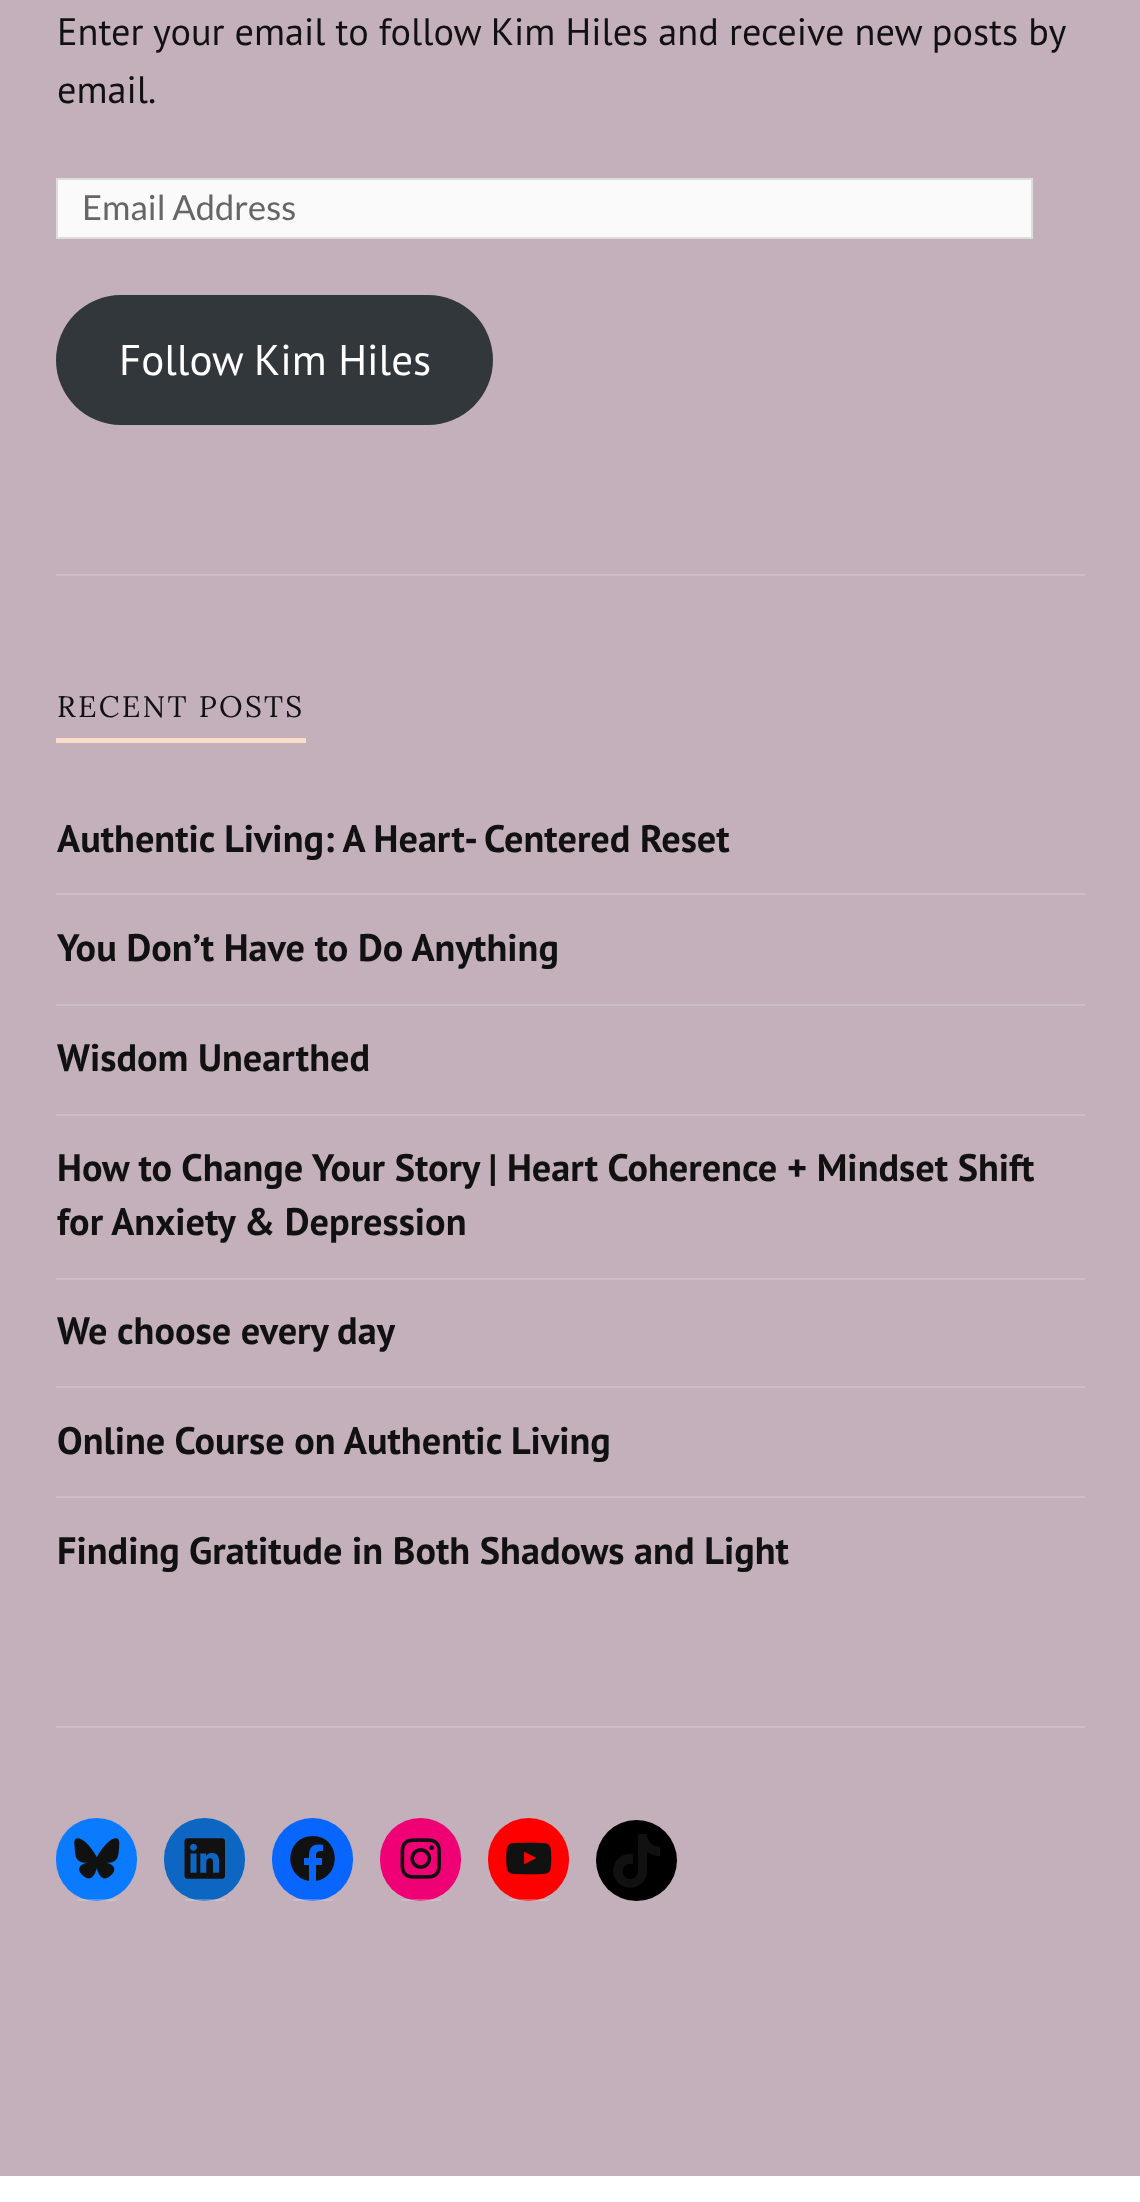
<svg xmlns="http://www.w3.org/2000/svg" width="1140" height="2202">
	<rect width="100%" height="100%" fill="#C3B0BA" />
	<g font-family="PT Sans" font-size="38.25" fill="#111111">
		<text x="57" y="45" word-spacing="-0.1">Enter your email to follow Kim Hiles and receive new posts by</text>
		<text x="57" y="103">email.</text>
	</g>
	<rect x="57" y="179" width="975" height="59" fill="#FAFAFA" stroke="#DDDDDD" stroke-width="2" />
	<text x="82" y="220" font-family="Lato" font-size="34.5" fill="#666666">Email Address</text>
	<rect x="56" y="295" width="437" height="130" rx="65" fill="#32373C" />
	<text x="119" y="375" font-family="PT Sans" font-size="43" fill="#FFFFFF">Follow Kim Hiles</text>
	<rect x="56" y="574" width="1029" height="2" fill="#CBBEC5" />
	<rect x="56" y="738" width="250" height="5" fill="#F9DCCA" />
	<text x="57" y="717" font-family="Lora" font-size="29.75" letter-spacing="2.25" fill="#111111">RECENT POSTS</text>
	<rect x="56" y="893" width="1029" height="2" fill="#CBBEC5" />
	<text x="57" y="852" font-family="PT Sans" font-size="38.25" font-weight="700" fill="#111111">Authentic Living: A Heart- Centered Reset</text>
	<rect x="56" y="1004" width="1029" height="2" fill="#CBBEC5" />
	<text x="57" y="961" font-family="PT Sans" font-size="38.25" font-weight="700" fill="#111111">You Don’t Have to Do Anything</text>
	<rect x="56" y="1114" width="1029" height="2" fill="#CBBEC5" />
	<text x="57" y="1071" font-family="PT Sans" font-size="38.25" font-weight="700" fill="#111111">Wisdom Unearthed</text>
	<rect x="56" y="1278" width="1029" height="2" fill="#CBBEC5" />
	<g font-family="PT Sans" font-size="38.25" font-weight="700" fill="#111111">
		<text x="57" y="1181">How to Change Your Story | Heart Coherence + Mindset Shift</text>
		<text x="57" y="1235">for Anxiety &amp; Depression</text>
	</g>
	<rect x="56" y="1386" width="1029" height="2" fill="#CBBEC5" />
	<text x="57" y="1344" font-family="PT Sans" font-size="38.25" font-weight="700" fill="#111111">We choose every day</text>
	<rect x="56" y="1496" width="1029" height="2" fill="#CBBEC5" />
	<g font-family="PT Sans" font-size="38.25" font-weight="700" fill="#111111">
		<text x="57" y="1454">Online Course on Authentic Living</text>
		<text x="57" y="1564">Finding Gratitude in Both Shadows and Light</text>
	</g>
	<rect x="56" y="1726" width="1029" height="2" fill="#CBBEC5" />
	<rect x="56" y="1818" width="81" height="83" rx="40.5" fill="#0A7AFF" />
	<rect x="77" y="1899" width="40" height="2" fill="#DDDDDD" fill-opacity="0.3" />
	<image x="74" y="1838" width="46" height="41" href="assets/img1.png" />
	<rect x="164" y="1818" width="81" height="83" rx="40.5" fill="#0D66C2" />
	<rect x="185" y="1899" width="40" height="2" fill="#DDDDDD" fill-opacity="0.3" />
	<image x="184" y="1838" width="41" height="41" href="assets/img2.png" />
	<rect x="272" y="1818" width="81" height="83" rx="40.5" fill="#0866FF" />
	<rect x="293" y="1899" width="40" height="2" fill="#DDDDDD" fill-opacity="0.3" />
	<path d="M313 1836C285 1836 282 1876 309 1881V1865H304V1858H309C309 1848 311 1843 323 1845V1851C316 1851 316 1852 316 1858H322V1865H316V1881C343 1876 340 1836 313 1836Z" fill="#111111" />
	<rect x="380" y="1818" width="81" height="83" rx="40.5" fill="#F00075" />
	<rect x="401" y="1899" width="40" height="2" fill="#DDDDDD" fill-opacity="0.3" />
	<image x="400" y="1838" width="41" height="41" href="assets/img3.png" />
	<rect x="488" y="1818" width="81" height="83" rx="40.5" fill="#FF0000" />
	<rect x="509" y="1899" width="40" height="2" fill="#DDDDDD" fill-opacity="0.3" />
	<image x="506" y="1842" width="46" height="33" href="assets/img4.png" />
	<circle cx="636.5" cy="1860.5" r="40.5" fill="#000000" />
	<image x="613" y="1834" width="47" height="54" href="assets/img5.png" />
	<rect x="0" y="2176" width="1140" height="26" fill="#FFFFFF" />
</svg>
